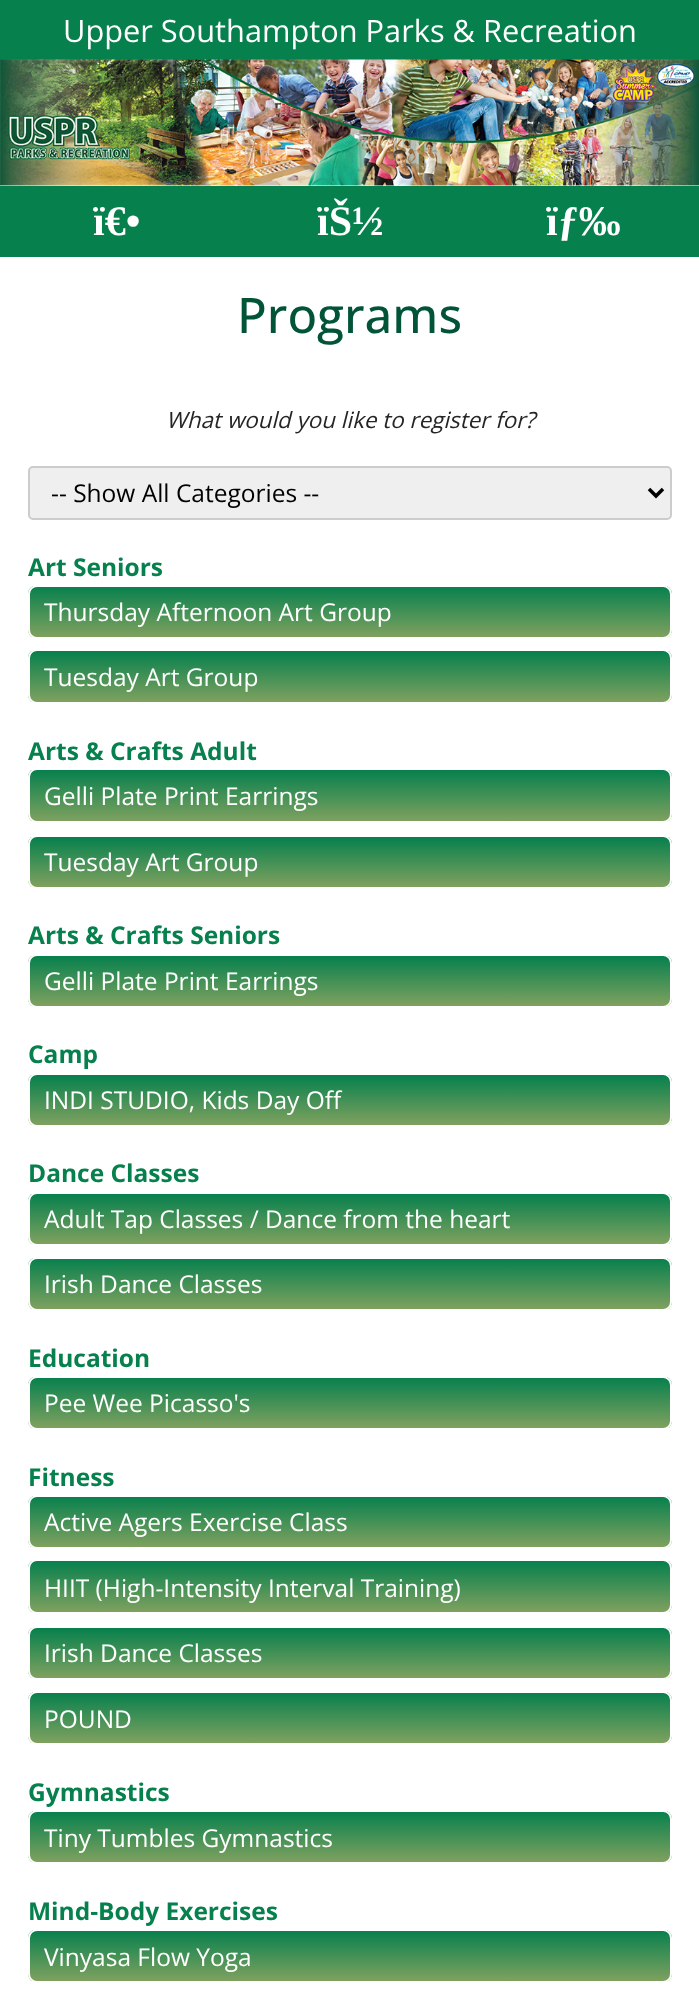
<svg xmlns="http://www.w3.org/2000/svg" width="699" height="1992">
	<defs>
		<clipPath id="clip1"><rect x="28" y="585" width="644" height="54" rx="9" /></clipPath>
		<linearGradient id="g1" gradientUnits="userSpaceOnUse" x1="350" y1="586" x2="350" y2="637"><stop offset="0" stop-color="#06804D" /><stop offset="1" stop-color="#7FA15F" /></linearGradient>
		<clipPath id="clip2"><rect x="28" y="649" width="644" height="55" rx="9" /></clipPath>
		<linearGradient id="g2" gradientUnits="userSpaceOnUse" x1="350" y1="651" x2="350" y2="702"><stop offset="0" stop-color="#06804D" /><stop offset="1" stop-color="#7FA15F" /></linearGradient>
		<clipPath id="clip3"><rect x="28" y="768" width="644" height="55" rx="9" /></clipPath>
		<linearGradient id="g3" gradientUnits="userSpaceOnUse" x1="350" y1="770" x2="350" y2="821"><stop offset="0" stop-color="#06804D" /><stop offset="1" stop-color="#7FA15F" /></linearGradient>
		<clipPath id="clip4"><rect x="28" y="835" width="644" height="54" rx="9" /></clipPath>
		<linearGradient id="g4" gradientUnits="userSpaceOnUse" x1="350" y1="837" x2="350" y2="887"><stop offset="0" stop-color="#06804D" /><stop offset="1" stop-color="#7FA15F" /></linearGradient>
		<clipPath id="clip5"><rect x="28" y="954" width="644" height="54" rx="9" /></clipPath>
		<linearGradient id="g5" gradientUnits="userSpaceOnUse" x1="350" y1="956" x2="350" y2="1006"><stop offset="0" stop-color="#06804D" /><stop offset="1" stop-color="#7FA15F" /></linearGradient>
		<clipPath id="clip6"><rect x="28" y="1073" width="644" height="54" rx="9" /></clipPath>
		<linearGradient id="g6" gradientUnits="userSpaceOnUse" x1="350" y1="1075" x2="350" y2="1125"><stop offset="0" stop-color="#06804D" /><stop offset="1" stop-color="#7FA15F" /></linearGradient>
		<clipPath id="clip7"><rect x="28" y="1192" width="644" height="54" rx="9" /></clipPath>
		<linearGradient id="g7" gradientUnits="userSpaceOnUse" x1="350" y1="1194" x2="350" y2="1244"><stop offset="0" stop-color="#06804D" /><stop offset="1" stop-color="#7FA15F" /></linearGradient>
		<clipPath id="clip8"><rect x="28" y="1257" width="644" height="54" rx="9" /></clipPath>
		<linearGradient id="g8" gradientUnits="userSpaceOnUse" x1="350" y1="1258" x2="350" y2="1309"><stop offset="0" stop-color="#06804D" /><stop offset="1" stop-color="#7FA15F" /></linearGradient>
		<clipPath id="clip9"><rect x="28" y="1376" width="644" height="54" rx="9" /></clipPath>
		<linearGradient id="g9" gradientUnits="userSpaceOnUse" x1="350" y1="1377" x2="350" y2="1428"><stop offset="0" stop-color="#06804D" /><stop offset="1" stop-color="#7FA15F" /></linearGradient>
		<clipPath id="clip10"><rect x="28" y="1495" width="644" height="54" rx="9" /></clipPath>
		<linearGradient id="g10" gradientUnits="userSpaceOnUse" x1="350" y1="1496" x2="350" y2="1547"><stop offset="0" stop-color="#06804D" /><stop offset="1" stop-color="#7FA15F" /></linearGradient>
		<clipPath id="clip11"><rect x="28" y="1559" width="644" height="55" rx="9" /></clipPath>
		<linearGradient id="g11" gradientUnits="userSpaceOnUse" x1="350" y1="1561" x2="350" y2="1612"><stop offset="0" stop-color="#06804D" /><stop offset="1" stop-color="#7FA15F" /></linearGradient>
		<clipPath id="clip12"><rect x="28" y="1626" width="644" height="54" rx="9" /></clipPath>
		<linearGradient id="g12" gradientUnits="userSpaceOnUse" x1="350" y1="1628" x2="350" y2="1678"><stop offset="0" stop-color="#06804D" /><stop offset="1" stop-color="#7FA15F" /></linearGradient>
		<clipPath id="clip13"><rect x="28" y="1691" width="644" height="54" rx="9" /></clipPath>
		<linearGradient id="g13" gradientUnits="userSpaceOnUse" x1="350" y1="1692" x2="350" y2="1743"><stop offset="0" stop-color="#06804D" /><stop offset="1" stop-color="#7FA15F" /></linearGradient>
		<clipPath id="clip14"><rect x="28" y="1810" width="644" height="54" rx="9" /></clipPath>
		<linearGradient id="g14" gradientUnits="userSpaceOnUse" x1="350" y1="1811" x2="350" y2="1862"><stop offset="0" stop-color="#06804D" /><stop offset="1" stop-color="#7FA15F" /></linearGradient>
		<clipPath id="clip15"><rect x="28" y="1929" width="644" height="54" rx="9" /></clipPath>
		<linearGradient id="g15" gradientUnits="userSpaceOnUse" x1="350" y1="1930" x2="350" y2="1981"><stop offset="0" stop-color="#06804D" /><stop offset="1" stop-color="#7FA15F" /></linearGradient>
	</defs>
	<rect width="100%" height="100%" fill="#FFFFFF" />
	<rect x="0" y="0" width="699" height="60" fill="#06804D" />
	<text x="63" y="42" font-family="Open Sans" font-size="30.75" fill="#FFFFFF">Upper Southampton Parks &amp; Recreation</text>
	<image x="0" y="59" width="699" height="127" href="assets/img1.png" />
	<rect x="0" y="186" width="699" height="71" fill="#06804D" />
	<g font-family="Liberation Serif" font-size="42" font-weight="700" fill="#FFFFFF">
		<text x="93" y="235">ï€•</text>
		<text x="317" y="235">ïŠ½</text>
		<text x="546" y="235">ïƒ‰</text>
	</g>
	<text x="237" y="333" font-family="Open Sans" font-size="49" font-weight="500" fill="#015435">Programs</text>
	<text x="166" y="428" font-family="Open Sans" font-size="22.4" font-style="italic" fill="#252525">What would you like to register for?</text>
	<rect x="29" y="467" width="642" height="52" rx="4" fill="#EFEFEF" stroke="#CCCCCC" stroke-width="2" />
	<path d="M649 489L656 496L663 489" fill="none" stroke="#000000" stroke-width="3.5" />
	<text x="51" y="502" font-family="Open Sans" font-size="24.5" fill="#000000">-- Show All Categories --</text>
	<text x="28" y="576" font-family="Open Sans" font-size="24.5" font-weight="700" fill="#06804D">Art Seniors</text>
	<g clip-path="url(#clip1)">
		<rect x="28" y="586" width="644" height="51" fill="url(#g1)" />
	</g>
	<rect x="29" y="586" width="642" height="52" rx="8" fill="none" stroke="#FFFFFF" stroke-width="2" />
	<text x="44" y="621" font-family="Open Sans" font-size="24.5" fill="#FFFFFF">Thursday Afternoon Art Group</text>
	<g clip-path="url(#clip2)">
		<rect x="28" y="651" width="644" height="51" fill="url(#g2)" />
	</g>
	<rect x="29" y="650" width="642" height="53" rx="8" fill="none" stroke="#FFFFFF" stroke-width="2" />
	<text x="44" y="686" font-family="Open Sans" font-size="24.5" fill="#FFFFFF">Tuesday Art Group</text>
	<text x="28" y="760" font-family="Open Sans" font-size="24.5" font-weight="700" fill="#06804D">Arts &amp; Crafts Adult</text>
	<g clip-path="url(#clip3)">
		<rect x="28" y="770" width="644" height="51" fill="url(#g3)" />
	</g>
	<rect x="29" y="769" width="642" height="53" rx="8" fill="none" stroke="#FFFFFF" stroke-width="2" />
	<text x="44" y="805" font-family="Open Sans" font-size="24.5" fill="#FFFFFF">Gelli Plate Print Earrings</text>
	<g clip-path="url(#clip4)">
		<rect x="28" y="837" width="644" height="50" fill="url(#g4)" />
	</g>
	<rect x="29" y="836" width="642" height="52" rx="8" fill="none" stroke="#FFFFFF" stroke-width="2" />
	<text x="44" y="871" font-family="Open Sans" font-size="24.5" fill="#FFFFFF">Tuesday Art Group</text>
	<text x="28" y="944" font-family="Open Sans" font-size="24.5" font-weight="700" fill="#06804D">Arts &amp; Crafts Seniors</text>
	<g clip-path="url(#clip5)">
		<rect x="28" y="956" width="644" height="50" fill="url(#g5)" />
	</g>
	<rect x="29" y="955" width="642" height="52" rx="8" fill="none" stroke="#FFFFFF" stroke-width="2" />
	<text x="44" y="990" font-family="Open Sans" font-size="24.5" fill="#FFFFFF">Gelli Plate Print Earrings</text>
	<text x="28" y="1063" font-family="Open Sans" font-size="24.5" font-weight="700" fill="#06804D">Camp</text>
	<g clip-path="url(#clip6)">
		<rect x="28" y="1075" width="644" height="50" fill="url(#g6)" />
	</g>
	<rect x="29" y="1074" width="642" height="52" rx="8" fill="none" stroke="#FFFFFF" stroke-width="2" />
	<text x="44" y="1109" font-family="Open Sans" font-size="24.5" fill="#FFFFFF">INDI STUDIO, Kids Day Off</text>
	<text x="28" y="1182" font-family="Open Sans" font-size="24.5" font-weight="700" fill="#06804D">Dance Classes</text>
	<g clip-path="url(#clip7)">
		<rect x="28" y="1194" width="644" height="50" fill="url(#g7)" />
	</g>
	<rect x="29" y="1193" width="642" height="52" rx="8" fill="none" stroke="#FFFFFF" stroke-width="2" />
	<text x="44" y="1228" font-family="Open Sans" font-size="24.5" fill="#FFFFFF">Adult Tap Classes / Dance from the heart</text>
	<g clip-path="url(#clip8)">
		<rect x="28" y="1258" width="644" height="51" fill="url(#g8)" />
	</g>
	<rect x="29" y="1258" width="642" height="52" rx="8" fill="none" stroke="#FFFFFF" stroke-width="2" />
	<text x="44" y="1293" font-family="Open Sans" font-size="24.5" fill="#FFFFFF">Irish Dance Classes</text>
	<text x="28" y="1367" font-family="Open Sans" font-size="24.5" font-weight="700" fill="#06804D">Education</text>
	<g clip-path="url(#clip9)">
		<rect x="28" y="1377" width="644" height="51" fill="url(#g9)" />
	</g>
	<rect x="29" y="1377" width="642" height="52" rx="8" fill="none" stroke="#FFFFFF" stroke-width="2" />
	<text x="44" y="1412" font-family="Open Sans" font-size="24.5" fill="#FFFFFF">Pee Wee Picasso's</text>
	<text x="28" y="1486" font-family="Open Sans" font-size="24.5" font-weight="700" fill="#06804D">Fitness</text>
	<g clip-path="url(#clip10)">
		<rect x="28" y="1496" width="644" height="51" fill="url(#g10)" />
	</g>
	<rect x="29" y="1496" width="642" height="52" rx="8" fill="none" stroke="#FFFFFF" stroke-width="2" />
	<text x="44" y="1531" font-family="Open Sans" font-size="24.5" fill="#FFFFFF">Active Agers Exercise Class</text>
	<g clip-path="url(#clip11)">
		<rect x="28" y="1561" width="644" height="51" fill="url(#g11)" />
	</g>
	<rect x="29" y="1560" width="642" height="53" rx="8" fill="none" stroke="#FFFFFF" stroke-width="2" />
	<text x="44" y="1597" font-family="Open Sans" font-size="24.5" fill="#FFFFFF">HIIT (High-Intensity Interval Training)</text>
	<g clip-path="url(#clip12)">
		<rect x="28" y="1628" width="644" height="50" fill="url(#g12)" />
	</g>
	<rect x="29" y="1627" width="642" height="52" rx="8" fill="none" stroke="#FFFFFF" stroke-width="2" />
	<text x="44" y="1662" font-family="Open Sans" font-size="24.5" fill="#FFFFFF">Irish Dance Classes</text>
	<g clip-path="url(#clip13)">
		<rect x="28" y="1692" width="644" height="51" fill="url(#g13)" />
	</g>
	<rect x="29" y="1692" width="642" height="52" rx="8" fill="none" stroke="#FFFFFF" stroke-width="2" />
	<text x="44" y="1728" font-family="Open Sans" font-size="24.5" fill="#FFFFFF">POUND</text>
	<text x="28" y="1801" font-family="Open Sans" font-size="24.5" font-weight="700" fill="#06804D">Gymnastics</text>
	<g clip-path="url(#clip14)">
		<rect x="28" y="1811" width="644" height="51" fill="url(#g14)" />
	</g>
	<rect x="29" y="1811" width="642" height="52" rx="8" fill="none" stroke="#FFFFFF" stroke-width="2" />
	<text x="44" y="1847" font-family="Open Sans" font-size="24.5" fill="#FFFFFF">Tiny Tumbles Gymnastics</text>
	<text x="28" y="1920" font-family="Open Sans" font-size="24.5" font-weight="700" fill="#06804D">Mind-Body Exercises</text>
	<g clip-path="url(#clip15)">
		<rect x="28" y="1930" width="644" height="51" fill="url(#g15)" />
	</g>
	<rect x="29" y="1930" width="642" height="52" rx="8" fill="none" stroke="#FFFFFF" stroke-width="2" />
	<text x="44" y="1966" font-family="Open Sans" font-size="24.5" fill="#FFFFFF">Vinyasa Flow Yoga</text>
</svg>
